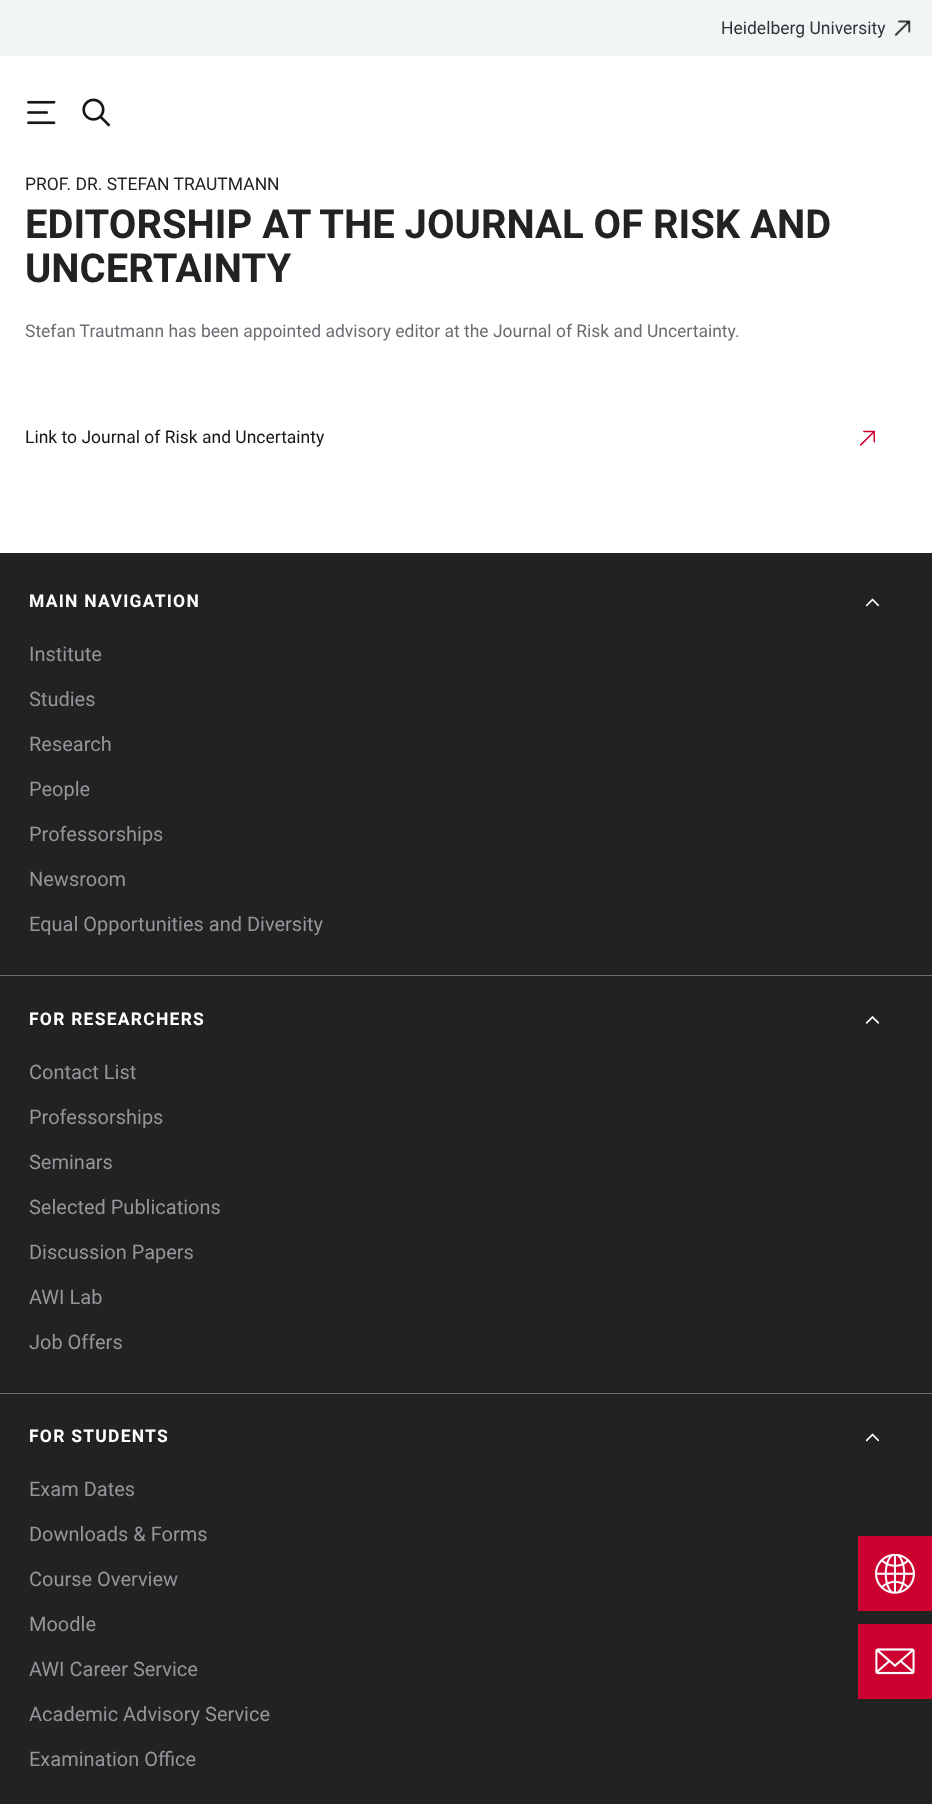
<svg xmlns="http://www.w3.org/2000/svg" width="932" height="1804">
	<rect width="100%" height="100%" fill="#FFFFFF" />
	<rect x="0" y="0" width="932" height="56" fill="#F2F5F6" />
	<text x="721" y="34" font-family="Roboto" font-size="17.5" fill="#2F3436">Heidelberg University</text>
	<image x="894" y="20" width="17" height="17" href="assets/img1.png" />
	<image x="27" y="100" width="29" height="25" href="assets/img2.png" />
	<image x="82" y="98" width="28" height="29" href="assets/img3.png" />
	<text x="25" y="190" font-family="Roboto" font-size="17.5" fill="#222222">PROF. DR. STEFAN TRAUTMANN</text>
	<g font-family="Roboto" font-size="40" font-weight="700" fill="#222222">
		<text x="25" y="238">EDITORSHIP AT THE JOURNAL OF RISK AND</text>
		<text x="25" y="282">UNCERTAINTY</text>
	</g>
	<text x="25" y="337" font-family="Roboto" font-size="17.5" fill="#6A6D71">Stefan Trautmann has been appointed advisory editor at the Journal of Risk and Uncertainty.</text>
	<text x="25" y="443" font-family="Roboto" font-size="17.5" fill="#171717">Link to Journal of Risk and Uncertainty</text>
	<image x="860" y="430" width="15" height="16" href="assets/img4.png" />
	<rect x="0" y="553" width="932" height="1251" fill="#222222" />
	<rect x="858" y="1536" width="74" height="75" fill="#CC0130" />
	<image x="875" y="1554" width="40" height="40" href="assets/img5.png" />
	<rect x="858" y="1624" width="74" height="75" fill="#CC0130" />
	<image x="875" y="1648" width="40" height="27" href="assets/img6.png" />
	<rect x="0" y="975" width="932" height="1" fill="#6A6D71" />
	<text x="29" y="607" font-family="Roboto" font-size="17.5" font-weight="700" letter-spacing="1.25" fill="#FFFFFF">MAIN NAVIGATION</text>
	<image x="865" y="598" width="15" height="9" href="assets/img7.png" />
	<g font-family="Roboto" font-size="20" fill="#93969A">
		<text x="29" y="661">Institute</text>
		<text x="29" y="706">Studies</text>
		<text x="29" y="751">Research</text>
		<text x="29" y="796">People</text>
		<text x="29" y="841">Professorships</text>
		<text x="29" y="886">Newsroom</text>
		<text x="29" y="931">Equal Opportunities and Diversity</text>
	</g>
	<rect x="0" y="1393" width="932" height="1" fill="#6A6D71" />
	<text x="29" y="1025" font-family="Roboto" font-size="17.5" font-weight="700" letter-spacing="1.25" fill="#FFFFFF">FOR RESEARCHERS</text>
	<image x="865" y="1016" width="15" height="8" href="assets/img8.png" />
	<g font-family="Roboto" font-size="20" fill="#93969A">
		<text x="29" y="1079">Contact List</text>
		<text x="29" y="1124">Professorships</text>
		<text x="29" y="1169">Seminars</text>
		<text x="29" y="1214">Selected Publications</text>
		<text x="29" y="1259">Discussion Papers</text>
		<text x="29" y="1304">AWI Lab</text>
		<text x="29" y="1349">Job Offers</text>
	</g>
	<text x="29" y="1442" font-family="Roboto" font-size="17.5" font-weight="700" letter-spacing="1.25" fill="#FFFFFF">FOR STUDENTS</text>
	<image x="865" y="1433" width="15" height="9" href="assets/img7.png" />
	<g font-family="Roboto" font-size="20" fill="#93969A">
		<text x="29" y="1496">Exam Dates</text>
		<text x="29" y="1541">Downloads &amp; Forms</text>
		<text x="29" y="1586">Course Overview</text>
		<text x="29" y="1631">Moodle</text>
		<text x="29" y="1676">AWI Career Service</text>
		<text x="29" y="1721">Academic Advisory Service</text>
		<text x="29" y="1766">Examination Office</text>
	</g>
</svg>
